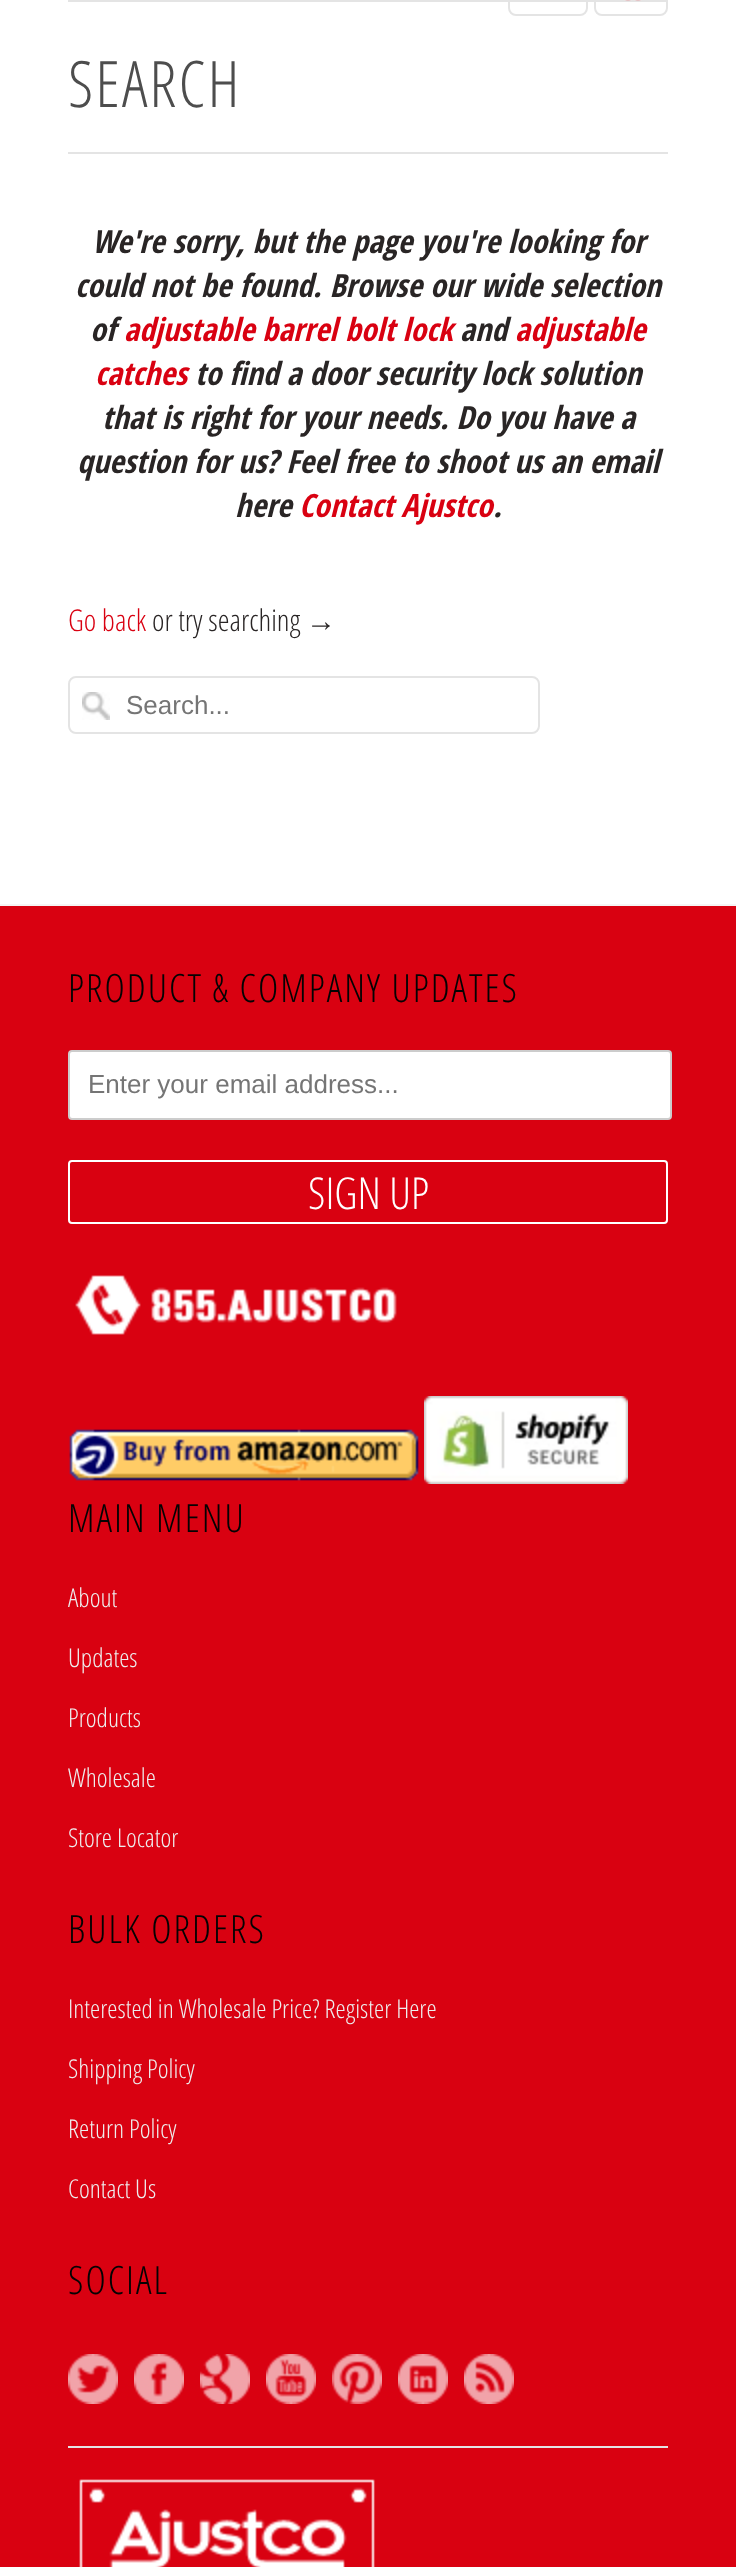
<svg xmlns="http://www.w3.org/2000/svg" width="736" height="2567">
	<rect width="100%" height="100%" fill="#FFFFFF" />
	<rect x="68" y="0" width="600" height="2" fill="#E4E4E4" />
	<rect x="509" y="-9" width="78" height="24" rx="7" fill="none" stroke="#E4E4E4" stroke-width="2" />
	<image x="624" y="0" width="18" height="1" href="assets/img1.png" />
	<rect x="595" y="-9" width="72" height="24" rx="7" fill="none" stroke="#E4E4E4" stroke-width="2" />
	<rect x="68" y="152" width="600" height="2" fill="#E4E4E4" />
	<text x="68" y="107" font-family="Open Sans Condensed" font-size="64" font-weight="300" letter-spacing="2" fill="#4D4D4D">SEARCH</text>
	<g font-family="Open Sans Condensed" font-size="32" font-weight="700" font-style="italic" fill="#292525">
		<text x="92" y="253">We're sorry, but the page you're looking for</text>
		<text x="75" y="297">could not be found. Browse our wide selection</text>
		<text x="90" y="341">of</text>
	</g>
	<text x="124" y="341" font-family="Open Sans Condensed" font-size="32" font-weight="700" font-style="italic" fill="#D90111">adjustable barrel bolt lock</text>
	<text x="460" y="341" font-family="Open Sans Condensed" font-size="32" font-weight="700" font-style="italic" fill="#292525">and</text>
	<g font-family="Open Sans Condensed" font-size="32" font-weight="700" font-style="italic" fill="#D90111">
		<text x="515" y="341">adjustable</text>
		<text x="95" y="385">catches</text>
	</g>
	<g font-family="Open Sans Condensed" font-size="32" font-weight="700" font-style="italic" fill="#292525">
		<text x="195" y="385">to find a door security lock solution</text>
		<text x="102" y="429">that is right for your needs. Do you have a</text>
		<text x="77" y="473">question for us? Feel free to shoot us an email</text>
		<text x="235" y="517">here</text>
	</g>
	<text x="299" y="517" font-family="Open Sans Condensed" font-size="32" font-weight="700" font-style="italic" fill="#D90111">Contact Ajustco</text>
	<text x="493" y="517" font-family="Open Sans Condensed" font-size="32" font-weight="700" font-style="italic" fill="#292525">.</text>
	<text x="68" y="631" font-family="Open Sans Condensed" font-size="30" font-weight="300" fill="#D90111">Go back</text>
	<text x="152" y="631" font-family="Open Sans Condensed" font-size="30" font-weight="300" fill="#292525">or try searching</text>
	<text x="306" y="631" font-family="Liberation Serif" font-size="30" fill="#292525">→</text>
	<image x="82" y="692" width="28" height="28" href="assets/img2.png" />
	<rect x="69" y="677" width="470" height="56" rx="7" fill="none" stroke="#E4E4E4" stroke-width="2" />
	<text x="126" y="714" font-family="Liberation Sans" font-size="26" fill="#757575">Search...</text>
	<rect x="0" y="906" width="736" height="1661" fill="#D90111" />
	<rect x="0" y="904" width="736" height="2" fill="#F5F5F5" />
	<text x="68" y="1002" font-family="Open Sans Condensed" font-size="39" font-weight="300" letter-spacing="2" fill="#030303">PRODUCT &amp; COMPANY UPDATES</text>
	<rect x="69" y="1051" width="602" height="68" rx="3" fill="#FFFFFF" stroke="#CCCCCC" stroke-width="2" />
	<text x="88" y="1093" font-family="Liberation Sans" font-size="26" fill="#757575">Enter your email address...</text>
	<rect x="69" y="1161" width="598" height="62" rx="3" fill="none" stroke="#FFFFFF" stroke-width="2" />
	<text x="308" y="1209" font-family="Open Sans Condensed" font-size="44" font-weight="300" fill="#FFFFFF">SIGN UP</text>
	<image x="75" y="1275" width="322" height="60" href="assets/img3.png" />
	<image x="69" y="1429" width="350" height="52" href="assets/img4.png" />
	<image x="424" y="1396" width="204" height="88" href="assets/img5.png" />
	<text x="68" y="1532" font-family="Open Sans Condensed" font-size="39" font-weight="300" letter-spacing="2" fill="#030303">MAIN MENU</text>
	<g font-family="Open Sans Condensed" font-size="26" font-weight="300" fill="#EEEEEE">
		<text x="68" y="1607">About</text>
		<text x="68" y="1667">Updates</text>
		<text x="68" y="1727">Products</text>
		<text x="68" y="1787">Wholesale</text>
		<text x="68" y="1847">Store Locator</text>
	</g>
	<text x="68" y="1943" font-family="Open Sans Condensed" font-size="39" font-weight="300" letter-spacing="2" fill="#030303">BULK ORDERS</text>
	<g font-family="Open Sans Condensed" font-size="26" font-weight="300" fill="#EEEEEE">
		<text x="68" y="2018">Interested in Wholesale Price? Register Here</text>
		<text x="68" y="2078">Shipping Policy</text>
		<text x="68" y="2138">Return Policy</text>
		<text x="68" y="2198">Contact Us</text>
	</g>
	<text x="68" y="2294" font-family="Open Sans Condensed" font-size="39" font-weight="300" letter-spacing="2" fill="#030303">SOCIAL</text>
	<image x="68" y="2354" width="50" height="50" href="assets/img6.png" />
	<image x="134" y="2354" width="50" height="50" href="assets/img7.png" />
	<image x="200" y="2354" width="50" height="50" href="assets/img8.png" />
	<image x="266" y="2354" width="50" height="50" href="assets/img9.png" />
	<image x="332" y="2354" width="50" height="50" href="assets/img10.png" />
	<image x="398" y="2354" width="50" height="50" href="assets/img11.png" />
	<image x="464" y="2354" width="50" height="50" href="assets/img12.png" />
	<rect x="68" y="2446" width="600" height="2" fill="#E4E4E4" />
	<image x="79" y="2479" width="296" height="88" href="assets/img13.png" />
</svg>
